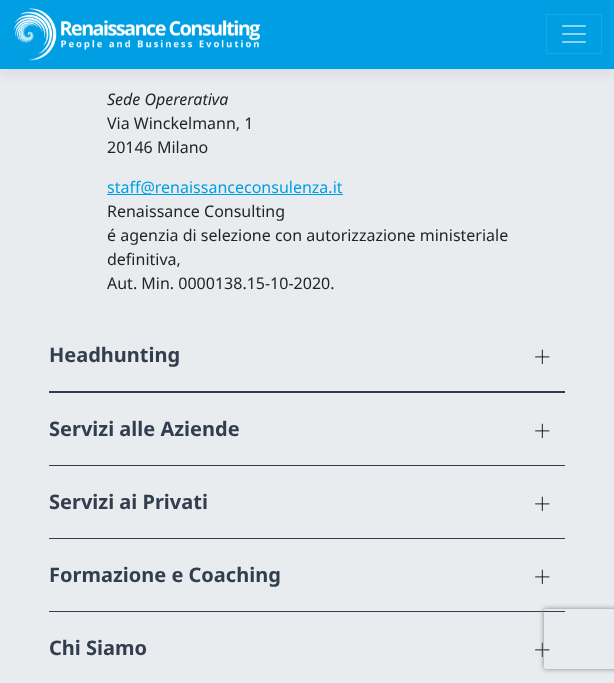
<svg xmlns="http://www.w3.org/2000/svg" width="614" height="683">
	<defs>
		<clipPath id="clip1"><path d="M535 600H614V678H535ZM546 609H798C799 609 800 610 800 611V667C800 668 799 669 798 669H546C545 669 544 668 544 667V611C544 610 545 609 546 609Z" clip-rule="evenodd" /></clipPath>
	</defs>
	<rect width="100%" height="100%" fill="#E9ECEF" />
	<rect x="0" y="2" width="614" height="69" fill="#000000" fill-opacity="0.1" filter="blur(7.5px)" />
	<rect x="0" y="0" width="614" height="69" fill="#009FE3" />
	<image x="13" y="8" width="248" height="53" href="assets/img1.png" />
	<rect x="546.5" y="14.5" width="55" height="39" fill="none" stroke="#1AA9E6" />
	<image x="562" y="25" width="24" height="18" href="assets/img2.png" />
	<text x="107" y="105" font-family="Noto Sans" font-size="16" font-style="italic" fill="#212529">Sede Opererativa</text>
	<g font-family="Noto Sans" font-size="16" fill="#212529">
		<text x="107" y="129">Via Winckelmann, 1</text>
		<text x="107" y="153">20146 Milano</text>
	</g>
	<rect x="107" y="194" width="236" height="1" fill="#009FE3" />
	<text x="107" y="193" font-family="Noto Sans" font-size="16" fill="#009FE3">staff@renaissanceconsulenza.it</text>
	<g font-family="Noto Sans" font-size="16" fill="#212529">
		<text x="107" y="217">Renaissance Consulting</text>
		<text x="107" y="241">é agenzia di selezione con autorizzazione ministeriale</text>
		<text x="107" y="265">definitiva,</text>
		<text x="107" y="289">Aut. Min. 0000138.15-10-2020.</text>
	</g>
	<rect x="49" y="391" width="516" height="2" fill="#323E4E" />
	<text x="49" y="362" font-family="Noto Sans" font-size="20" font-weight="700" fill="#323E4E">Headhunting</text>
	<image x="535" y="349" width="15" height="16" href="assets/img3.png" />
	<rect x="49" y="465" width="516" height="1" fill="#323E4E" />
	<text x="49" y="436" font-family="Noto Sans" font-size="20" font-weight="700" fill="#323E4E">Servizi alle Aziende</text>
	<image x="535" y="423" width="15" height="16" href="assets/img3.png" />
	<rect x="49" y="538" width="516" height="1" fill="#323E4E" />
	<text x="49" y="509" font-family="Noto Sans" font-size="20" font-weight="700" fill="#323E4E">Servizi ai Privati</text>
	<image x="535" y="496" width="15" height="16" href="assets/img3.png" />
	<rect x="49" y="611" width="516" height="1" fill="#323E4E" />
	<text x="49" y="582" font-family="Noto Sans" font-size="20" font-weight="700" fill="#323E4E">Formazione e Coaching</text>
	<image x="535" y="569" width="15" height="16" href="assets/img3.png" />
	<text x="49" y="655" font-family="Noto Sans" font-size="20" font-weight="700" fill="#323E4E">Chi Siamo</text>
	<image x="535" y="642" width="15" height="16" href="assets/img3.png" />
	<g clip-path="url(#clip1)">
		<rect x="544" y="609" width="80" height="60" rx="2" fill="#808080" filter="blur(2.5px)" />
	</g>
</svg>
